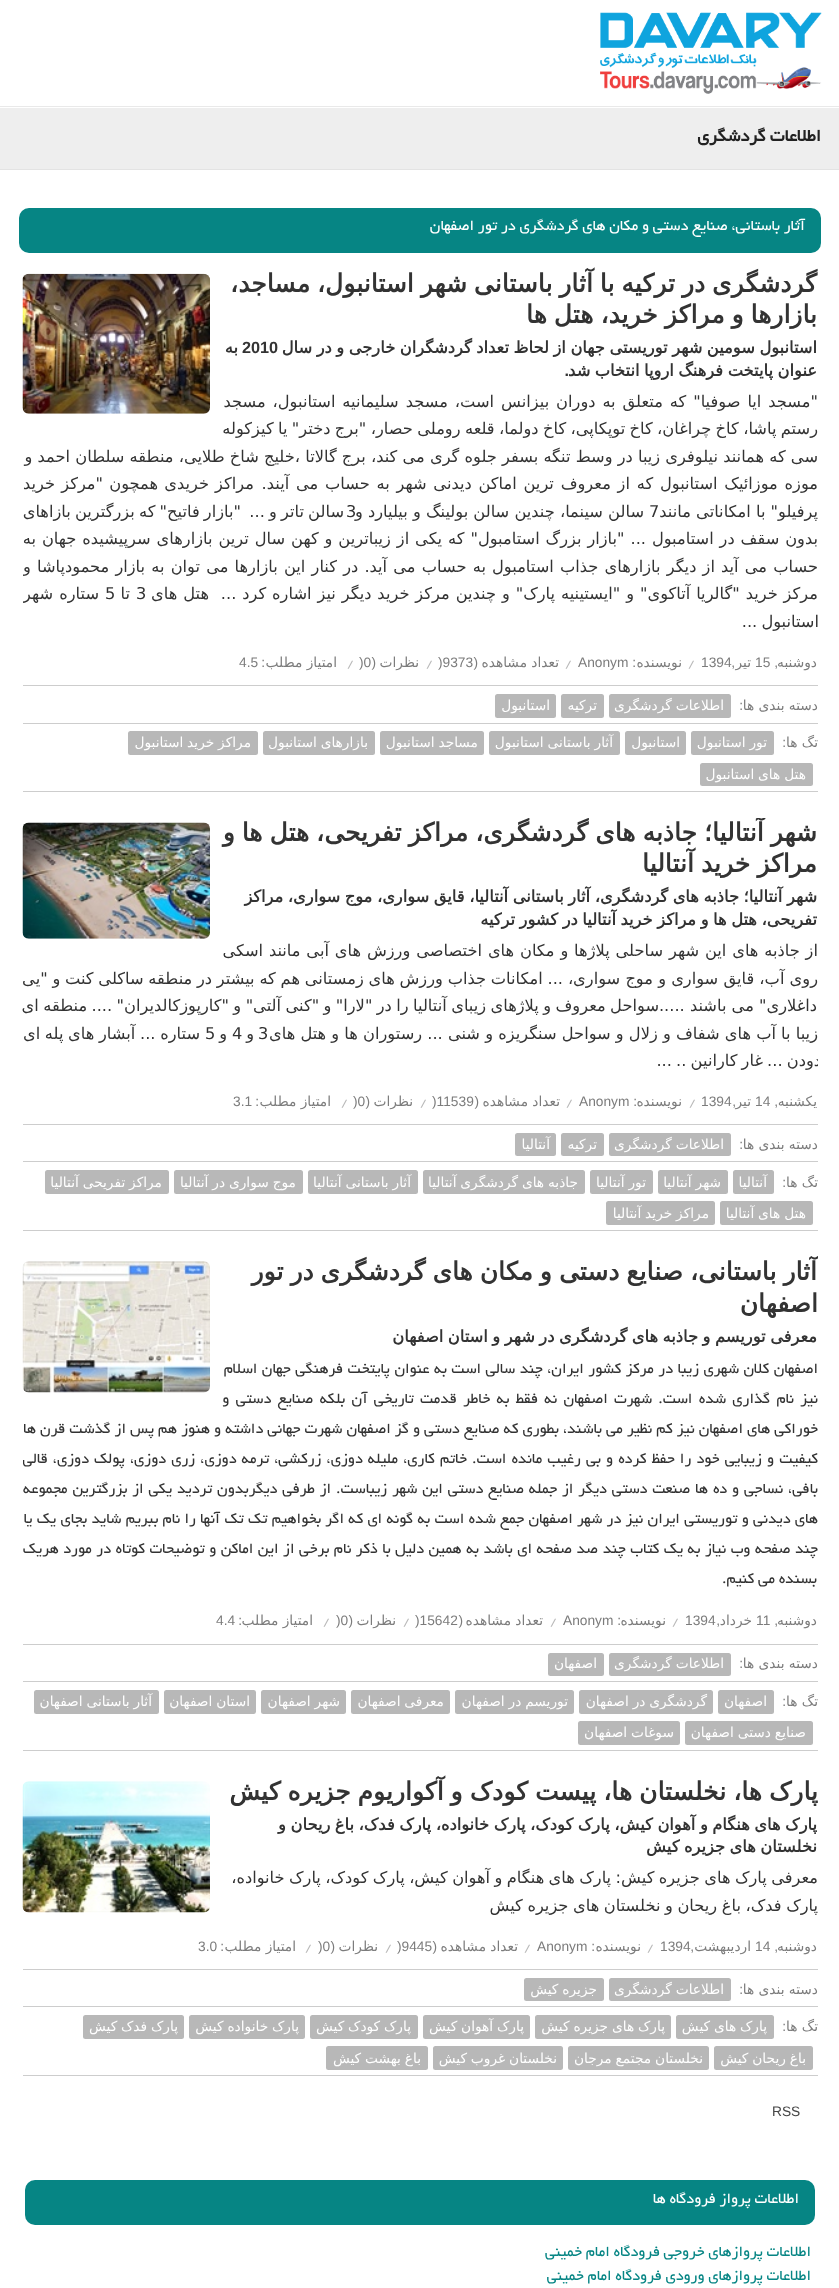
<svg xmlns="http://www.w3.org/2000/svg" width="839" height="2288">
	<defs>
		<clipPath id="clip1"><rect x="23" y="269" width="795" height="380" /></clipPath>
		<clipPath id="clip2"><rect x="23" y="818" width="795" height="270" /></clipPath>
		<clipPath id="clip3"><rect x="23" y="1256" width="795" height="350" /></clipPath>
	</defs>
	<rect width="100%" height="100%" fill="#FFFFFF" />
	<rect x="0" y="106" width="839" height="1" fill="#E9E9E9" />
	<image x="600" y="12" width="222" height="82" href="assets/img1.png" />
	<rect x="0" y="108" width="839" height="61" fill="#EEEEEE" />
	<rect x="0" y="169" width="839" height="1" fill="#E3E3E3" />
	<text x="821" y="141" font-family="'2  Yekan'" font-size="18.75" font-weight="700" direction="rtl" fill="#222222">اطلاعات گردشگری</text>
	<rect x="19" y="208" width="802" height="45" rx="10" fill="#068584" />
	<text x="805" y="230" font-family="'2  Yekan'" font-size="16.25" direction="rtl" fill="#FFFFFF">آثار باستانی، صنایع دستی و مکان های گردشگری در تور اصفهان</text>
	<g font-family="DejaVu Sans" font-size="25" font-weight="700" direction="rtl" fill="#333333">
		<text x="817" y="292" word-spacing="-1">گردشگری در ترکیه با آثار باستانی شهر استانبول، مساجد،</text>
		<text x="817" y="323" word-spacing="-1">بازارها و مراکز خرید، هتل ها</text>
	</g>
	<image x="22" y="273" width="188" height="141" href="assets/img2.png" />
	<text x="817" y="353" word-spacing="-0.6" font-family="DejaVu Sans" font-size="16.25" font-weight="700" direction="rtl" fill="#333333">استانبول سومین شهر توریستی جهان از لحاظ تعداد گردشگران خارجی و در سال</text>
	<text x="242" y="353" font-family="Liberation Sans" font-size="16.25" font-weight="700" fill="#333333">2010</text>
	<g font-family="DejaVu Sans" font-size="16.25" font-weight="700" direction="rtl" fill="#333333">
		<text x="238" y="353">به</text>
		<text x="817" y="376" word-spacing="-0.6">عنوان پایتخت فرهنگ اروپا انتخاب شد</text>
	</g>
	<text x="569" y="376" font-family="Liberation Sans" font-size="16.25" font-weight="700" direction="rtl" fill="#333333">.</text>
	<g font-family="DejaVu Sans" font-size="16.25" direction="rtl" fill="#333333">
		<text x="818" y="407" word-spacing="1.75">"مسجد ایا صوفیا" که متعلق به دوران بیزانس است، مسجد سلیمانیه استانبول، مسجد</text>
		<text x="818" y="434" word-spacing="-0.8">رستم پاشا، کاخ چراغان، کاخ توپکاپی، کاخ دولما، قلعه روملی حصار، "برج دختر" یا کیزکوله</text>
	</g>
	<g clip-path="url(#clip1)">
		<text x="818" y="462" font-family="DejaVu Sans" font-size="16.25" direction="rtl" fill="#333333">سی که همانند نیلوفری زیبا در وسط تنگه بسفر جلوه گری می کند، برج گالاتا ،خلیج شاخ طلایی، منطقه سلطان احمد و</text>
	</g>
	<g font-family="DejaVu Sans" font-size="16.25" direction="rtl" fill="#333333">
		<text x="818" y="489" word-spacing="1.6">موزه موزائیک استانبول که از معروف ترین اماکن دیدنی شهر به حساب می آیند.</text>
		<text x="254" y="489" word-spacing="1">مراکز خریدی همچون "مرکز خرید</text>
		<text x="818" y="517">پرفیلو" با امکاناتی مانند</text>
	</g>
	<g font-family="DejaVu Sans" font-size="16.25" fill="#333333">
		<text x="649" y="517">7</text>
		<text x="346" y="517">3</text>
	</g>
	<g font-family="DejaVu Sans" font-size="16.25" direction="rtl" fill="#333333">
		<text x="644" y="517">سالن سینما، چندین سالن بولینگ و بیلیارد و</text>
		<text x="344" y="517" word-spacing="-1" xml:space="preserve">سالن تاتر و ...  "بازار فاتیح" که بزرگترین بازاهای</text>
		<text x="818" y="544" word-spacing="0.75">بدون سقف در استامبول ... "بازار بزرگ استامبول" که یکی از زیباترین و کهن سال ترین بازارهای سرپیشیده جهان به</text>
	</g>
	<g clip-path="url(#clip1)">
		<text x="818" y="572" word-spacing="1" font-family="DejaVu Sans" font-size="16.25" direction="rtl" fill="#333333">حساب می آید از دیگر بازارهای جذاب استامبول به حساب می آید. در کنار این بازارها می توان به بازار محمودپاشا و</text>
	</g>
	<text x="818" y="599" word-spacing="0.75" font-family="DejaVu Sans" font-size="16.25" direction="rtl" fill="#333333" xml:space="preserve">مرکز خرید "گالریا آتاکوی" و "ایستینیه پارک" و چندین مرکز خرید دیگر نیز اشاره کرد ...  هتل های</text>
	<text x="136" y="599" font-family="DejaVu Sans" font-size="16.25" fill="#333333">3</text>
	<text x="130" y="599" font-family="DejaVu Sans" font-size="16.25" direction="rtl" fill="#333333">تا</text>
	<text x="105" y="599" font-family="DejaVu Sans" font-size="16.25" fill="#333333">5</text>
	<g clip-path="url(#clip1)">
		<text x="99" y="599" word-spacing="1" font-family="DejaVu Sans" font-size="16.25" direction="rtl" fill="#333333">ستاره شهر</text>
	</g>
	<text x="819" y="627" word-spacing="-1" font-family="DejaVu Sans" font-size="16.25" direction="rtl" fill="#333333">استانبول ...</text>
	<text x="817" y="667" font-family="DejaVu Sans" font-size="13.75" direction="rtl" fill="#7C7C7C">دوشنبه</text>
	<text x="778" y="667" font-family="Liberation Sans" font-size="13.75" direction="rtl" fill="#7C7C7C">,</text>
	<text x="755" y="667" font-family="Liberation Sans" font-size="13.75" fill="#7C7C7C">15</text>
	<text x="751" y="667" font-family="DejaVu Sans" font-size="13.75" direction="rtl" fill="#7C7C7C">تیر</text>
	<text x="735" y="667" font-family="Liberation Sans" font-size="13.75" direction="rtl" fill="#7C7C7C">,</text>
	<text x="701" y="667" font-family="Liberation Sans" font-size="13.75" fill="#7C7C7C">1394</text>
	<text x="688" y="667" font-family="'2  Yekan'" font-size="13.75" fill="#B8B8B8">/</text>
	<text x="682" y="667" font-family="DejaVu Sans" font-size="13.75" direction="rtl" fill="#7C7C7C">نویسنده</text>
	<text x="636" y="667" font-family="Liberation Sans" font-size="13.75" direction="rtl" fill="#7C7C7C">:</text>
	<text x="578" y="667" font-family="Liberation Sans" font-size="13.75" fill="#7C7C7C">Anonym</text>
	<text x="565" y="667" font-family="'2  Yekan'" font-size="13.75" fill="#B8B8B8">/</text>
	<text x="559" y="667" font-family="DejaVu Sans" font-size="13.75" direction="rtl" fill="#7C7C7C">تعداد مشاهده</text>
	<text x="478" y="667" font-family="Liberation Sans" font-size="13.75" direction="rtl" fill="#7C7C7C">(</text>
	<text x="438" y="667" font-family="Liberation Sans" font-size="13.75" fill="#7C7C7C">)9373</text>
	<text x="426" y="667" font-family="'2  Yekan'" font-size="13.75" fill="#B8B8B8">/</text>
	<text x="419" y="667" font-family="DejaVu Sans" font-size="13.75" direction="rtl" fill="#7C7C7C">نظرات</text>
	<text x="376" y="667" font-family="Liberation Sans" font-size="13.75" direction="rtl" fill="#7C7C7C">(</text>
	<text x="359" y="667" font-family="Liberation Sans" font-size="13.75" fill="#7C7C7C">)0</text>
	<text x="347" y="667" font-family="'2  Yekan'" font-size="13.75" fill="#B8B8B8">/</text>
	<text x="337" y="667" font-family="DejaVu Sans" font-size="13.75" direction="rtl" fill="#7C7C7C">امتیاز مطلب</text>
	<text x="265" y="667" font-family="Liberation Sans" font-size="13.75" direction="rtl" fill="#7C7C7C">:</text>
	<text x="239" y="667" font-family="Liberation Sans" font-size="13.75" fill="#7C7C7C">4.5</text>
	<rect x="23" y="685" width="795" height="1" fill="#CDCDCD" />
	<text x="818" y="710" font-family="DejaVu Sans" font-size="13.75" direction="rtl" fill="#7C7C7C">دسته بندی ها</text>
	<text x="743" y="710" font-family="Liberation Sans" font-size="13.75" direction="rtl" fill="#7C7C7C">:</text>
	<rect x="609" y="694" width="122" height="24" rx="2.5" fill="#B8B8B8" />
	<text x="724" y="710" word-spacing="-0.5" font-family="DejaVu Sans" font-size="13.75" direction="rtl" fill="#FFFFFF">اطلاعات گردشگری</text>
	<rect x="561" y="694" width="43" height="24" rx="2.5" fill="#B8B8B8" />
	<text x="597" y="710" font-family="DejaVu Sans" font-size="13.75" direction="rtl" fill="#FFFFFF">ترکیه</text>
	<rect x="495" y="694" width="61" height="24" rx="2.5" fill="#B8B8B8" />
	<text x="550" y="710" font-family="DejaVu Sans" font-size="13.75" direction="rtl" fill="#FFFFFF">استانبول</text>
	<rect x="23" y="723" width="795" height="1" fill="#CDCDCD" />
	<rect x="23" y="791" width="795" height="1" fill="#CDCDCD" />
	<text x="818" y="747" font-family="DejaVu Sans" font-size="13.75" direction="rtl" fill="#7C7C7C">تگ ها</text>
	<text x="786" y="747" font-family="Liberation Sans" font-size="13.75" direction="rtl" fill="#7C7C7C">:</text>
	<rect x="691" y="731" width="83" height="24" rx="2.5" fill="#B8B8B8" />
	<text x="767" y="747" word-spacing="-0.5" font-family="DejaVu Sans" font-size="13.75" direction="rtl" fill="#FFFFFF">تور استانبول</text>
	<rect x="625" y="731" width="61" height="24" rx="2.5" fill="#B8B8B8" />
	<text x="680" y="747" font-family="DejaVu Sans" font-size="13.75" direction="rtl" fill="#FFFFFF">استانبول</text>
	<rect x="489" y="731" width="131" height="24" rx="2.5" fill="#B8B8B8" />
	<text x="613" y="747" word-spacing="-0.5" font-family="DejaVu Sans" font-size="13.75" direction="rtl" fill="#FFFFFF">آثار باستانی استانبول</text>
	<rect x="380" y="731" width="104" height="24" rx="2.5" fill="#B8B8B8" />
	<text x="478" y="747" word-spacing="-0.5" font-family="DejaVu Sans" font-size="13.75" direction="rtl" fill="#FFFFFF">مساجد استانبول</text>
	<rect x="263" y="731" width="112" height="24" rx="2.5" fill="#B8B8B8" />
	<text x="368" y="747" word-spacing="-0.5" font-family="DejaVu Sans" font-size="13.75" direction="rtl" fill="#FFFFFF">بازارهای استانبول</text>
	<rect x="128" y="731" width="130" height="24" rx="2.5" fill="#B8B8B8" />
	<text x="251" y="747" word-spacing="-0.5" font-family="DejaVu Sans" font-size="13.75" direction="rtl" fill="#FFFFFF">مراکز خرید استانبول</text>
	<rect x="700" y="763" width="113" height="23" rx="2.5" fill="#B8B8B8" />
	<text x="806" y="779" word-spacing="-0.5" font-family="DejaVu Sans" font-size="13.75" direction="rtl" fill="#FFFFFF">هتل های استانبول</text>
	<g clip-path="url(#clip2)">
		<text x="817" y="841" word-spacing="-1" font-family="DejaVu Sans" font-size="25" font-weight="700" direction="rtl" fill="#333333">شهر آنتالیا؛ جاذبه های گردشگری، مراکز تفریحی، هتل ها و</text>
	</g>
	<text x="817" y="872" word-spacing="-1" font-family="DejaVu Sans" font-size="25" font-weight="700" direction="rtl" fill="#333333">مراکز خرید آنتالیا</text>
	<image x="22" y="822" width="188" height="117" href="assets/img3.png" />
	<g font-family="DejaVu Sans" font-size="16.25" font-weight="700" direction="rtl" fill="#333333">
		<text x="817" y="902" word-spacing="-0.6">شهر آنتالیا؛ جاذبه های گردشگری، آثار باستانی آنتالیا، قایق سواری، موج سواری، مراکز</text>
		<text x="817" y="925" word-spacing="-0.6">تفریحی، هتل ها و مراکز خرید آنتالیا در کشور ترکیه</text>
	</g>
	<g font-family="DejaVu Sans" font-size="16.25" direction="rtl" fill="#333333">
		<text x="818" y="956" word-spacing="0.7">از جاذبه های این شهر ساحلی پلاژها و مکان های اختصاصی ورزش های آبی مانند اسکی</text>
		<text x="818" y="984">روی آب، قایق سواری و موج سواری،</text>
		<text x="563" y="984" word-spacing="-0.4">... امکانات جذاب ورزش های زمستانی هم که بیشتر در منطقه ساکلی کنت و "یی</text>
		<text x="817" y="1011">داغلاری" می باشند .....</text>
		<text x="659" y="1011" word-spacing="-0.75">سواحل معروف و پلاژهای زیبای آنتالیا را در "لارا" و "کنی آلتی" و "کارپوزکالدیران" .... منطقه ای</text>
		<text x="818" y="1039">زیبا با آب های شفاف و زلال و سواحل سنگریزه و شنی ... رستوران ها و هتل های</text>
	</g>
	<text x="258" y="1039" font-family="DejaVu Sans" font-size="16.25" fill="#333333">3</text>
	<text x="254" y="1039" font-family="DejaVu Sans" font-size="16.25" direction="rtl" fill="#333333">و</text>
	<text x="232" y="1039" font-family="DejaVu Sans" font-size="16.25" fill="#333333">4</text>
	<text x="227" y="1039" font-family="DejaVu Sans" font-size="16.25" direction="rtl" fill="#333333">و</text>
	<text x="205" y="1039" font-family="DejaVu Sans" font-size="16.25" fill="#333333">5</text>
	<text x="200" y="1039" word-spacing="-0.5" font-family="DejaVu Sans" font-size="16.25" direction="rtl" fill="#333333">ستاره ... آبشار های پله ای</text>
	<g clip-path="url(#clip2)">
		<text x="821" y="1066" word-spacing="-1" font-family="DejaVu Sans" font-size="16.25" direction="rtl" fill="#333333">دودن ... غار کارانین .. ...</text>
	</g>
	<text x="817" y="1106" font-family="DejaVu Sans" font-size="13.75" direction="rtl" fill="#7C7C7C">یکشنبه</text>
	<text x="778" y="1106" font-family="Liberation Sans" font-size="13.75" direction="rtl" fill="#7C7C7C">,</text>
	<text x="755" y="1106" font-family="Liberation Sans" font-size="13.75" fill="#7C7C7C">14</text>
	<text x="751" y="1106" font-family="DejaVu Sans" font-size="13.75" direction="rtl" fill="#7C7C7C">تیر</text>
	<text x="736" y="1106" font-family="Liberation Sans" font-size="13.75" direction="rtl" fill="#7C7C7C">,</text>
	<text x="701" y="1106" font-family="Liberation Sans" font-size="13.75" fill="#7C7C7C">1394</text>
	<text x="689" y="1106" font-family="'2  Yekan'" font-size="13.75" fill="#B8B8B8">/</text>
	<text x="682" y="1106" font-family="DejaVu Sans" font-size="13.75" direction="rtl" fill="#7C7C7C">نویسنده</text>
	<text x="637" y="1106" font-family="Liberation Sans" font-size="13.75" direction="rtl" fill="#7C7C7C">:</text>
	<text x="579" y="1106" font-family="Liberation Sans" font-size="13.75" fill="#7C7C7C">Anonym</text>
	<text x="566" y="1106" font-family="'2  Yekan'" font-size="13.75" fill="#B8B8B8">/</text>
	<text x="560" y="1106" font-family="DejaVu Sans" font-size="13.75" direction="rtl" fill="#7C7C7C">تعداد مشاهده</text>
	<text x="479" y="1106" font-family="Liberation Sans" font-size="13.75" direction="rtl" fill="#7C7C7C">(</text>
	<text x="432" y="1106" font-family="Liberation Sans" font-size="13.75" fill="#7C7C7C">)11539</text>
	<text x="420" y="1106" font-family="'2  Yekan'" font-size="13.75" fill="#B8B8B8">/</text>
	<text x="413" y="1106" font-family="DejaVu Sans" font-size="13.75" direction="rtl" fill="#7C7C7C">نظرات</text>
	<text x="370" y="1106" font-family="Liberation Sans" font-size="13.75" direction="rtl" fill="#7C7C7C">(</text>
	<text x="353" y="1106" font-family="Liberation Sans" font-size="13.75" fill="#7C7C7C">)0</text>
	<text x="341" y="1106" font-family="'2  Yekan'" font-size="13.75" fill="#B8B8B8">/</text>
	<text x="331" y="1106" font-family="DejaVu Sans" font-size="13.75" direction="rtl" fill="#7C7C7C">امتیاز مطلب</text>
	<text x="259" y="1106" font-family="Liberation Sans" font-size="13.75" direction="rtl" fill="#7C7C7C">:</text>
	<text x="233" y="1106" font-family="Liberation Sans" font-size="13.75" fill="#7C7C7C">3.1</text>
	<rect x="23" y="1124" width="795" height="1" fill="#CDCDCD" />
	<text x="818" y="1149" font-family="DejaVu Sans" font-size="13.75" direction="rtl" fill="#7C7C7C">دسته بندی ها</text>
	<text x="743" y="1149" font-family="Liberation Sans" font-size="13.75" direction="rtl" fill="#7C7C7C">:</text>
	<rect x="609" y="1133" width="122" height="23" rx="2.5" fill="#B8B8B8" />
	<text x="724" y="1149" word-spacing="-0.5" font-family="DejaVu Sans" font-size="13.75" direction="rtl" fill="#FFFFFF">اطلاعات گردشگری</text>
	<rect x="561" y="1133" width="43" height="23" rx="2.5" fill="#B8B8B8" />
	<text x="597" y="1149" font-family="DejaVu Sans" font-size="13.75" direction="rtl" fill="#FFFFFF">ترکیه</text>
	<rect x="515" y="1133" width="41" height="23" rx="2.5" fill="#B8B8B8" />
	<text x="550" y="1149" font-family="DejaVu Sans" font-size="13.75" direction="rtl" fill="#FFFFFF">آنتالیا</text>
	<rect x="23" y="1161" width="795" height="1" fill="#CDCDCD" />
	<rect x="23" y="1230" width="795" height="1" fill="#CDCDCD" />
	<text x="818" y="1187" font-family="DejaVu Sans" font-size="13.75" direction="rtl" fill="#7C7C7C">تگ ها</text>
	<text x="786" y="1187" font-family="Liberation Sans" font-size="13.75" direction="rtl" fill="#7C7C7C">:</text>
	<rect x="733" y="1170" width="41" height="24" rx="2.5" fill="#B8B8B8" />
	<text x="767" y="1187" font-family="DejaVu Sans" font-size="13.75" direction="rtl" fill="#FFFFFF">آنتالیا</text>
	<rect x="658" y="1170" width="70" height="24" rx="2.5" fill="#B8B8B8" />
	<text x="721" y="1187" word-spacing="-0.5" font-family="DejaVu Sans" font-size="13.75" direction="rtl" fill="#FFFFFF">شهر آنتالیا</text>
	<rect x="590" y="1170" width="63" height="24" rx="2.5" fill="#B8B8B8" />
	<text x="646" y="1187" word-spacing="-0.5" font-family="DejaVu Sans" font-size="13.75" direction="rtl" fill="#FFFFFF">تور آنتالیا</text>
	<rect x="423" y="1170" width="162" height="24" rx="2.5" fill="#B8B8B8" />
	<text x="578" y="1187" word-spacing="-0.5" font-family="DejaVu Sans" font-size="13.75" direction="rtl" fill="#FFFFFF">جاذبه های گردشگری آنتالیا</text>
	<rect x="308" y="1170" width="110" height="24" rx="2.5" fill="#B8B8B8" />
	<text x="411" y="1187" word-spacing="-0.5" font-family="DejaVu Sans" font-size="13.75" direction="rtl" fill="#FFFFFF">آثار باستانی آنتالیا</text>
	<rect x="174" y="1170" width="129" height="24" rx="2.5" fill="#B8B8B8" />
	<text x="296" y="1187" word-spacing="-0.5" font-family="DejaVu Sans" font-size="13.75" direction="rtl" fill="#FFFFFF">موج سواری در آنتالیا</text>
	<rect x="45" y="1170" width="124" height="24" rx="2.5" fill="#B8B8B8" />
	<text x="162" y="1187" word-spacing="-0.5" font-family="DejaVu Sans" font-size="13.75" direction="rtl" fill="#FFFFFF">مراکز تفریحی آنتالیا</text>
	<rect x="720" y="1201" width="93" height="24" rx="2.5" fill="#B8B8B8" />
	<text x="806" y="1218" word-spacing="-0.5" font-family="DejaVu Sans" font-size="13.75" direction="rtl" fill="#FFFFFF">هتل های آنتالیا</text>
	<rect x="606" y="1201" width="109" height="24" rx="2.5" fill="#B8B8B8" />
	<text x="709" y="1218" word-spacing="-0.5" font-family="DejaVu Sans" font-size="13.75" direction="rtl" fill="#FFFFFF">مراکز خرید آنتالیا</text>
	<g clip-path="url(#clip3)">
		<text x="817" y="1280" word-spacing="-1" font-family="DejaVu Sans" font-size="25" font-weight="700" direction="rtl" fill="#333333">آثار باستانی، صنایع دستی و مکان های گردشگری در تور</text>
	</g>
	<text x="818" y="1312" font-family="DejaVu Sans" font-size="25" font-weight="700" direction="rtl" fill="#333333">اصفهان</text>
	<image x="22" y="1261" width="188" height="132" href="assets/img4.png" />
	<text x="817" y="1342" word-spacing="-0.6" font-family="DejaVu Sans" font-size="16.25" font-weight="700" direction="rtl" fill="#333333">معرفی توریسم و جاذبه های گردشگری در شهر و استان اصفهان</text>
	<g font-family="'2  Yekan'" font-size="16.25" direction="rtl" fill="#333333">
		<text x="818" y="1373" word-spacing="0.8">اصفهان کلان شهری زیبا در مرکز کشور ایران، چند سالی است به عنوان پایتخت فرهنگی جهان اسلام</text>
		<text x="818" y="1403" word-spacing="2.6">نیز نام گذاری شده است. شهرت اصفهان نه فقط به خاطر قدمت تاریخی آن بلکه صنایع دستی و</text>
		<text x="818" y="1433" word-spacing="0.35">خوراکی های اصفهان نیز کم نظیر می باشند، بطوری که صنایع دستی و گز اصفهان شهرت جهانی داشته و هنوز هم پس از گذشت قرن ها</text>
	</g>
	<g clip-path="url(#clip3)">
		<text x="818" y="1463" word-spacing="1.4" font-family="'2  Yekan'" font-size="16.25" direction="rtl" fill="#333333">کیفیت و زیبایی خود را حفظ کرده و بی رغیب مانده است. خاتم کاری، ملیله دوزی، زرکشی، ترمه دوزی، زری دوزی، پولک دوزی، قالی</text>
	</g>
	<g font-family="'2  Yekan'" font-size="16.25" direction="rtl" fill="#333333">
		<text x="818" y="1493" word-spacing="1.15">بافی، نساجی و ده ها صنعت دستی دیگر از جمله صنایع دستی این شهر زیباست. از طرفی دیگربدون تردید یکی از بزرگترین مجموعه</text>
		<text x="818" y="1523" word-spacing="0.55">های دیدنی و توریستی ایران نیز در شهر اصفهان جمع شده است به گونه ای که اگر بخواهیم تک تک آنها را نام ببریم شاید بجای یک یا</text>
		<text x="818" y="1553" word-spacing="0.8">چند صفحه وب نیاز به یک کتاب چند صد صفحه ای باشد به همین دلیل با ذکر نام برخی از این اماکن و توضیحات کوتاه در مورد هریک</text>
		<text x="817" y="1583">بسنده می کنیم.</text>
	</g>
	<text x="817" y="1625" font-family="DejaVu Sans" font-size="13.75" direction="rtl" fill="#7C7C7C">دوشنبه</text>
	<text x="778" y="1625" font-family="Liberation Sans" font-size="13.75" direction="rtl" fill="#7C7C7C">,</text>
	<text x="756" y="1625" font-family="Liberation Sans" font-size="13.75" fill="#7C7C7C">11</text>
	<text x="752" y="1625" font-family="DejaVu Sans" font-size="13.75" direction="rtl" fill="#7C7C7C">خرداد</text>
	<text x="720" y="1625" font-family="Liberation Sans" font-size="13.75" direction="rtl" fill="#7C7C7C">,</text>
	<text x="685" y="1625" font-family="Liberation Sans" font-size="13.75" fill="#7C7C7C">1394</text>
	<text x="672" y="1625" font-family="'2  Yekan'" font-size="13.75" fill="#B8B8B8">/</text>
	<text x="666" y="1625" font-family="DejaVu Sans" font-size="13.75" direction="rtl" fill="#7C7C7C">نویسنده</text>
	<text x="621" y="1625" font-family="Liberation Sans" font-size="13.75" direction="rtl" fill="#7C7C7C">:</text>
	<text x="563" y="1625" font-family="Liberation Sans" font-size="13.75" fill="#7C7C7C">Anonym</text>
	<text x="550" y="1625" font-family="'2  Yekan'" font-size="13.75" fill="#B8B8B8">/</text>
	<text x="543" y="1625" font-family="DejaVu Sans" font-size="13.75" direction="rtl" fill="#7C7C7C">تعداد مشاهده</text>
	<text x="463" y="1625" font-family="Liberation Sans" font-size="13.75" direction="rtl" fill="#7C7C7C">(</text>
	<text x="415" y="1625" font-family="Liberation Sans" font-size="13.75" fill="#7C7C7C">)15642</text>
	<text x="403" y="1625" font-family="'2  Yekan'" font-size="13.75" fill="#B8B8B8">/</text>
	<text x="396" y="1625" font-family="DejaVu Sans" font-size="13.75" direction="rtl" fill="#7C7C7C">نظرات</text>
	<text x="353" y="1625" font-family="Liberation Sans" font-size="13.75" direction="rtl" fill="#7C7C7C">(</text>
	<text x="336" y="1625" font-family="Liberation Sans" font-size="13.75" fill="#7C7C7C">)0</text>
	<text x="323" y="1625" font-family="'2  Yekan'" font-size="13.75" fill="#B8B8B8">/</text>
	<text x="313" y="1625" font-family="DejaVu Sans" font-size="13.75" direction="rtl" fill="#7C7C7C">امتیاز مطلب</text>
	<text x="242" y="1625" font-family="Liberation Sans" font-size="13.75" direction="rtl" fill="#7C7C7C">:</text>
	<text x="216" y="1625" font-family="Liberation Sans" font-size="13.75" fill="#7C7C7C">4.4</text>
	<rect x="23" y="1644" width="795" height="1" fill="#CDCDCD" />
	<text x="818" y="1668" font-family="DejaVu Sans" font-size="13.75" direction="rtl" fill="#7C7C7C">دسته بندی ها</text>
	<text x="743" y="1668" font-family="Liberation Sans" font-size="13.75" direction="rtl" fill="#7C7C7C">:</text>
	<rect x="609" y="1653" width="122" height="23" rx="2.5" fill="#B8B8B8" />
	<text x="724" y="1668" word-spacing="-0.5" font-family="DejaVu Sans" font-size="13.75" direction="rtl" fill="#FFFFFF">اطلاعات گردشگری</text>
	<rect x="548" y="1653" width="56" height="23" rx="2.5" fill="#B8B8B8" />
	<text x="597" y="1668" font-family="DejaVu Sans" font-size="13.75" direction="rtl" fill="#FFFFFF">اصفهان</text>
	<rect x="23" y="1681" width="795" height="1" fill="#CDCDCD" />
	<rect x="23" y="1750" width="795" height="1" fill="#CDCDCD" />
	<text x="818" y="1706" font-family="DejaVu Sans" font-size="13.75" direction="rtl" fill="#7C7C7C">تگ ها</text>
	<text x="786" y="1706" font-family="Liberation Sans" font-size="13.75" direction="rtl" fill="#7C7C7C">:</text>
	<rect x="718" y="1690" width="56" height="24" rx="2.5" fill="#B8B8B8" />
	<text x="767" y="1706" font-family="DejaVu Sans" font-size="13.75" direction="rtl" fill="#FFFFFF">اصفهان</text>
	<rect x="579" y="1690" width="134" height="24" rx="2.5" fill="#B8B8B8" />
	<text x="707" y="1706" word-spacing="-0.5" font-family="DejaVu Sans" font-size="13.75" direction="rtl" fill="#FFFFFF">گردشگری در اصفهان</text>
	<rect x="455" y="1690" width="119" height="24" rx="2.5" fill="#B8B8B8" />
	<text x="568" y="1706" word-spacing="-0.5" font-family="DejaVu Sans" font-size="13.75" direction="rtl" fill="#FFFFFF">توریسم در اصفهان</text>
	<rect x="351" y="1690" width="99" height="24" rx="2.5" fill="#B8B8B8" />
	<text x="444" y="1706" word-spacing="-0.5" font-family="DejaVu Sans" font-size="13.75" direction="rtl" fill="#FFFFFF">معرفی اصفهان</text>
	<rect x="261" y="1690" width="85" height="24" rx="2.5" fill="#B8B8B8" />
	<text x="340" y="1706" word-spacing="-0.5" font-family="DejaVu Sans" font-size="13.75" direction="rtl" fill="#FFFFFF">شهر اصفهان</text>
	<rect x="164" y="1690" width="92" height="24" rx="2.5" fill="#B8B8B8" />
	<text x="250" y="1706" word-spacing="-0.5" font-family="DejaVu Sans" font-size="13.75" direction="rtl" fill="#FFFFFF">استان اصفهان</text>
	<rect x="34" y="1690" width="125" height="24" rx="2.5" fill="#B8B8B8" />
	<text x="152" y="1706" word-spacing="-0.5" font-family="DejaVu Sans" font-size="13.75" direction="rtl" fill="#FFFFFF">آثار باستانی اصفهان</text>
	<rect x="685" y="1721" width="128" height="24" rx="2.5" fill="#B8B8B8" />
	<text x="806" y="1737" word-spacing="-0.5" font-family="DejaVu Sans" font-size="13.75" direction="rtl" fill="#FFFFFF">صنایع دستی اصفهان</text>
	<rect x="578" y="1721" width="102" height="24" rx="2.5" fill="#B8B8B8" />
	<text x="674" y="1737" word-spacing="-0.5" font-family="DejaVu Sans" font-size="13.75" direction="rtl" fill="#FFFFFF">سوغات اصفهان</text>
	<text x="818" y="1800" word-spacing="-1" font-family="DejaVu Sans" font-size="25" font-weight="700" direction="rtl" fill="#333333">پارک ها، نخلستان ها، پیست کودک و آکواریوم جزیره کیش</text>
	<image x="22" y="1781" width="188" height="132" href="assets/img5.png" />
	<g font-family="DejaVu Sans" font-size="16.25" font-weight="700" direction="rtl" fill="#333333">
		<text x="817" y="1830" word-spacing="-0.6">پارک های هنگام و آهوان کیش، پارک کودک، پارک خانواده، پارک فدک، باغ ریحان و</text>
		<text x="817" y="1852" word-spacing="-0.6">نخلستان های جزیره کیش</text>
	</g>
	<g font-family="DejaVu Sans" font-size="16.25" direction="rtl" fill="#333333">
		<text x="818" y="1883" word-spacing="-0.75">معرفی پارک های جزیره کیش: پارک های هنگام و آهوان کیش، پارک کودک، پارک خانواده،</text>
		<text x="818" y="1911" word-spacing="-0.6">پارک فدک، باغ ریحان و نخلستان های جزیره کیش</text>
	</g>
	<text x="817" y="1951" font-family="DejaVu Sans" font-size="13.75" direction="rtl" fill="#7C7C7C">دوشنبه</text>
	<text x="778" y="1951" font-family="Liberation Sans" font-size="13.75" direction="rtl" fill="#7C7C7C">,</text>
	<text x="755" y="1951" font-family="Liberation Sans" font-size="13.75" fill="#7C7C7C">14</text>
	<text x="751" y="1951" font-family="DejaVu Sans" font-size="13.75" direction="rtl" fill="#7C7C7C">اردیبهشت</text>
	<text x="694" y="1951" font-family="Liberation Sans" font-size="13.75" direction="rtl" fill="#7C7C7C">,</text>
	<text x="660" y="1951" font-family="Liberation Sans" font-size="13.75" fill="#7C7C7C">1394</text>
	<text x="647" y="1951" font-family="'2  Yekan'" font-size="13.75" fill="#B8B8B8">/</text>
	<text x="641" y="1951" font-family="DejaVu Sans" font-size="13.75" direction="rtl" fill="#7C7C7C">نویسنده</text>
	<text x="595" y="1951" font-family="Liberation Sans" font-size="13.75" direction="rtl" fill="#7C7C7C">:</text>
	<text x="537" y="1951" font-family="Liberation Sans" font-size="13.75" fill="#7C7C7C">Anonym</text>
	<text x="524" y="1951" font-family="'2  Yekan'" font-size="13.75" fill="#B8B8B8">/</text>
	<text x="518" y="1951" font-family="DejaVu Sans" font-size="13.75" direction="rtl" fill="#7C7C7C">تعداد مشاهده</text>
	<text x="437" y="1951" font-family="Liberation Sans" font-size="13.75" direction="rtl" fill="#7C7C7C">(</text>
	<text x="397" y="1951" font-family="Liberation Sans" font-size="13.75" fill="#7C7C7C">)9445</text>
	<text x="385" y="1951" font-family="'2  Yekan'" font-size="13.75" fill="#B8B8B8">/</text>
	<text x="378" y="1951" font-family="DejaVu Sans" font-size="13.75" direction="rtl" fill="#7C7C7C">نظرات</text>
	<text x="335" y="1951" font-family="Liberation Sans" font-size="13.75" direction="rtl" fill="#7C7C7C">(</text>
	<text x="318" y="1951" font-family="Liberation Sans" font-size="13.75" fill="#7C7C7C">)0</text>
	<text x="305" y="1951" font-family="'2  Yekan'" font-size="13.75" fill="#B8B8B8">/</text>
	<text x="296" y="1951" font-family="DejaVu Sans" font-size="13.75" direction="rtl" fill="#7C7C7C">امتیاز مطلب</text>
	<text x="224" y="1951" font-family="Liberation Sans" font-size="13.75" direction="rtl" fill="#7C7C7C">:</text>
	<text x="198" y="1951" font-family="Liberation Sans" font-size="13.75" fill="#7C7C7C">3.0</text>
	<rect x="23" y="1969" width="795" height="1" fill="#CDCDCD" />
	<text x="818" y="1994" font-family="DejaVu Sans" font-size="13.75" direction="rtl" fill="#7C7C7C">دسته بندی ها</text>
	<text x="743" y="1994" font-family="Liberation Sans" font-size="13.75" direction="rtl" fill="#7C7C7C">:</text>
	<rect x="609" y="1978" width="122" height="23" rx="2.5" fill="#B8B8B8" />
	<text x="724" y="1994" word-spacing="-0.5" font-family="DejaVu Sans" font-size="13.75" direction="rtl" fill="#FFFFFF">اطلاعات گردشگری</text>
	<rect x="524" y="1978" width="80" height="23" rx="2.5" fill="#B8B8B8" />
	<text x="597" y="1994" word-spacing="-0.5" font-family="DejaVu Sans" font-size="13.75" direction="rtl" fill="#FFFFFF">جزیره کیش</text>
	<rect x="23" y="2006" width="795" height="1" fill="#CDCDCD" />
	<rect x="23" y="2075" width="795" height="1" fill="#CDCDCD" />
	<text x="818" y="2031" font-family="DejaVu Sans" font-size="13.75" direction="rtl" fill="#7C7C7C">تگ ها</text>
	<text x="786" y="2031" font-family="Liberation Sans" font-size="13.75" direction="rtl" fill="#7C7C7C">:</text>
	<rect x="676" y="2015" width="98" height="24" rx="2.5" fill="#B8B8B8" />
	<text x="767" y="2031" word-spacing="-0.5" font-family="DejaVu Sans" font-size="13.75" direction="rtl" fill="#FFFFFF">پارک های کیش</text>
	<rect x="535" y="2015" width="136" height="24" rx="2.5" fill="#B8B8B8" />
	<text x="665" y="2031" word-spacing="-0.5" font-family="DejaVu Sans" font-size="13.75" direction="rtl" fill="#FFFFFF">پارک های جزیره کیش</text>
	<rect x="423" y="2015" width="107" height="24" rx="2.5" fill="#B8B8B8" />
	<text x="524" y="2031" word-spacing="-0.5" font-family="DejaVu Sans" font-size="13.75" direction="rtl" fill="#FFFFFF">پارک آهوان کیش</text>
	<rect x="310" y="2015" width="108" height="24" rx="2.5" fill="#B8B8B8" />
	<text x="411" y="2031" word-spacing="-0.5" font-family="DejaVu Sans" font-size="13.75" direction="rtl" fill="#FFFFFF">پارک کودک کیش</text>
	<rect x="189" y="2015" width="116" height="24" rx="2.5" fill="#B8B8B8" />
	<text x="299" y="2031" word-spacing="-0.5" font-family="DejaVu Sans" font-size="13.75" direction="rtl" fill="#FFFFFF">پارک خانواده کیش</text>
	<rect x="83" y="2015" width="101" height="24" rx="2.5" fill="#B8B8B8" />
	<text x="178" y="2031" word-spacing="-0.5" font-family="DejaVu Sans" font-size="13.75" direction="rtl" fill="#FFFFFF">پارک فدک کیش</text>
	<rect x="714" y="2046" width="99" height="24" rx="2.5" fill="#B8B8B8" />
	<text x="806" y="2063" word-spacing="-0.5" font-family="DejaVu Sans" font-size="13.75" direction="rtl" fill="#FFFFFF">باغ ریحان کیش</text>
	<rect x="568" y="2046" width="141" height="24" rx="2.5" fill="#B8B8B8" />
	<text x="703" y="2063" word-spacing="-0.5" font-family="DejaVu Sans" font-size="13.75" direction="rtl" fill="#FFFFFF">نخلستان مجتمع مرجان</text>
	<rect x="433" y="2046" width="130" height="24" rx="2.5" fill="#B8B8B8" />
	<text x="557" y="2063" word-spacing="-0.5" font-family="DejaVu Sans" font-size="13.75" direction="rtl" fill="#FFFFFF">نخلستان غروب کیش</text>
	<rect x="326" y="2046" width="102" height="24" rx="2.5" fill="#B8B8B8" />
	<text x="421" y="2063" word-spacing="-0.5" font-family="DejaVu Sans" font-size="13.75" direction="rtl" fill="#FFFFFF">باغ بهشت کیش</text>
	<text x="772" y="2116" font-family="Liberation Sans" font-size="13.75" fill="#444444">RSS</text>
	<rect x="25" y="2180" width="790" height="45" rx="10" fill="#068584" />
	<text x="799" y="2203" font-family="'2  Yekan'" font-size="16.25" direction="rtl" fill="#FFFFFF">اطلاعات پرواز فرودگاه ها</text>
	<g font-family="'2  Yekan'" font-size="16.25" direction="rtl" fill="#068584">
		<text x="811" y="2256">اطلاعات پروازهای خروجی فرودگاه امام خمینی</text>
		<text x="811" y="2280">اطلاعات پروازهای ورودی فرودگاه امام خمینی</text>
	</g>
</svg>
